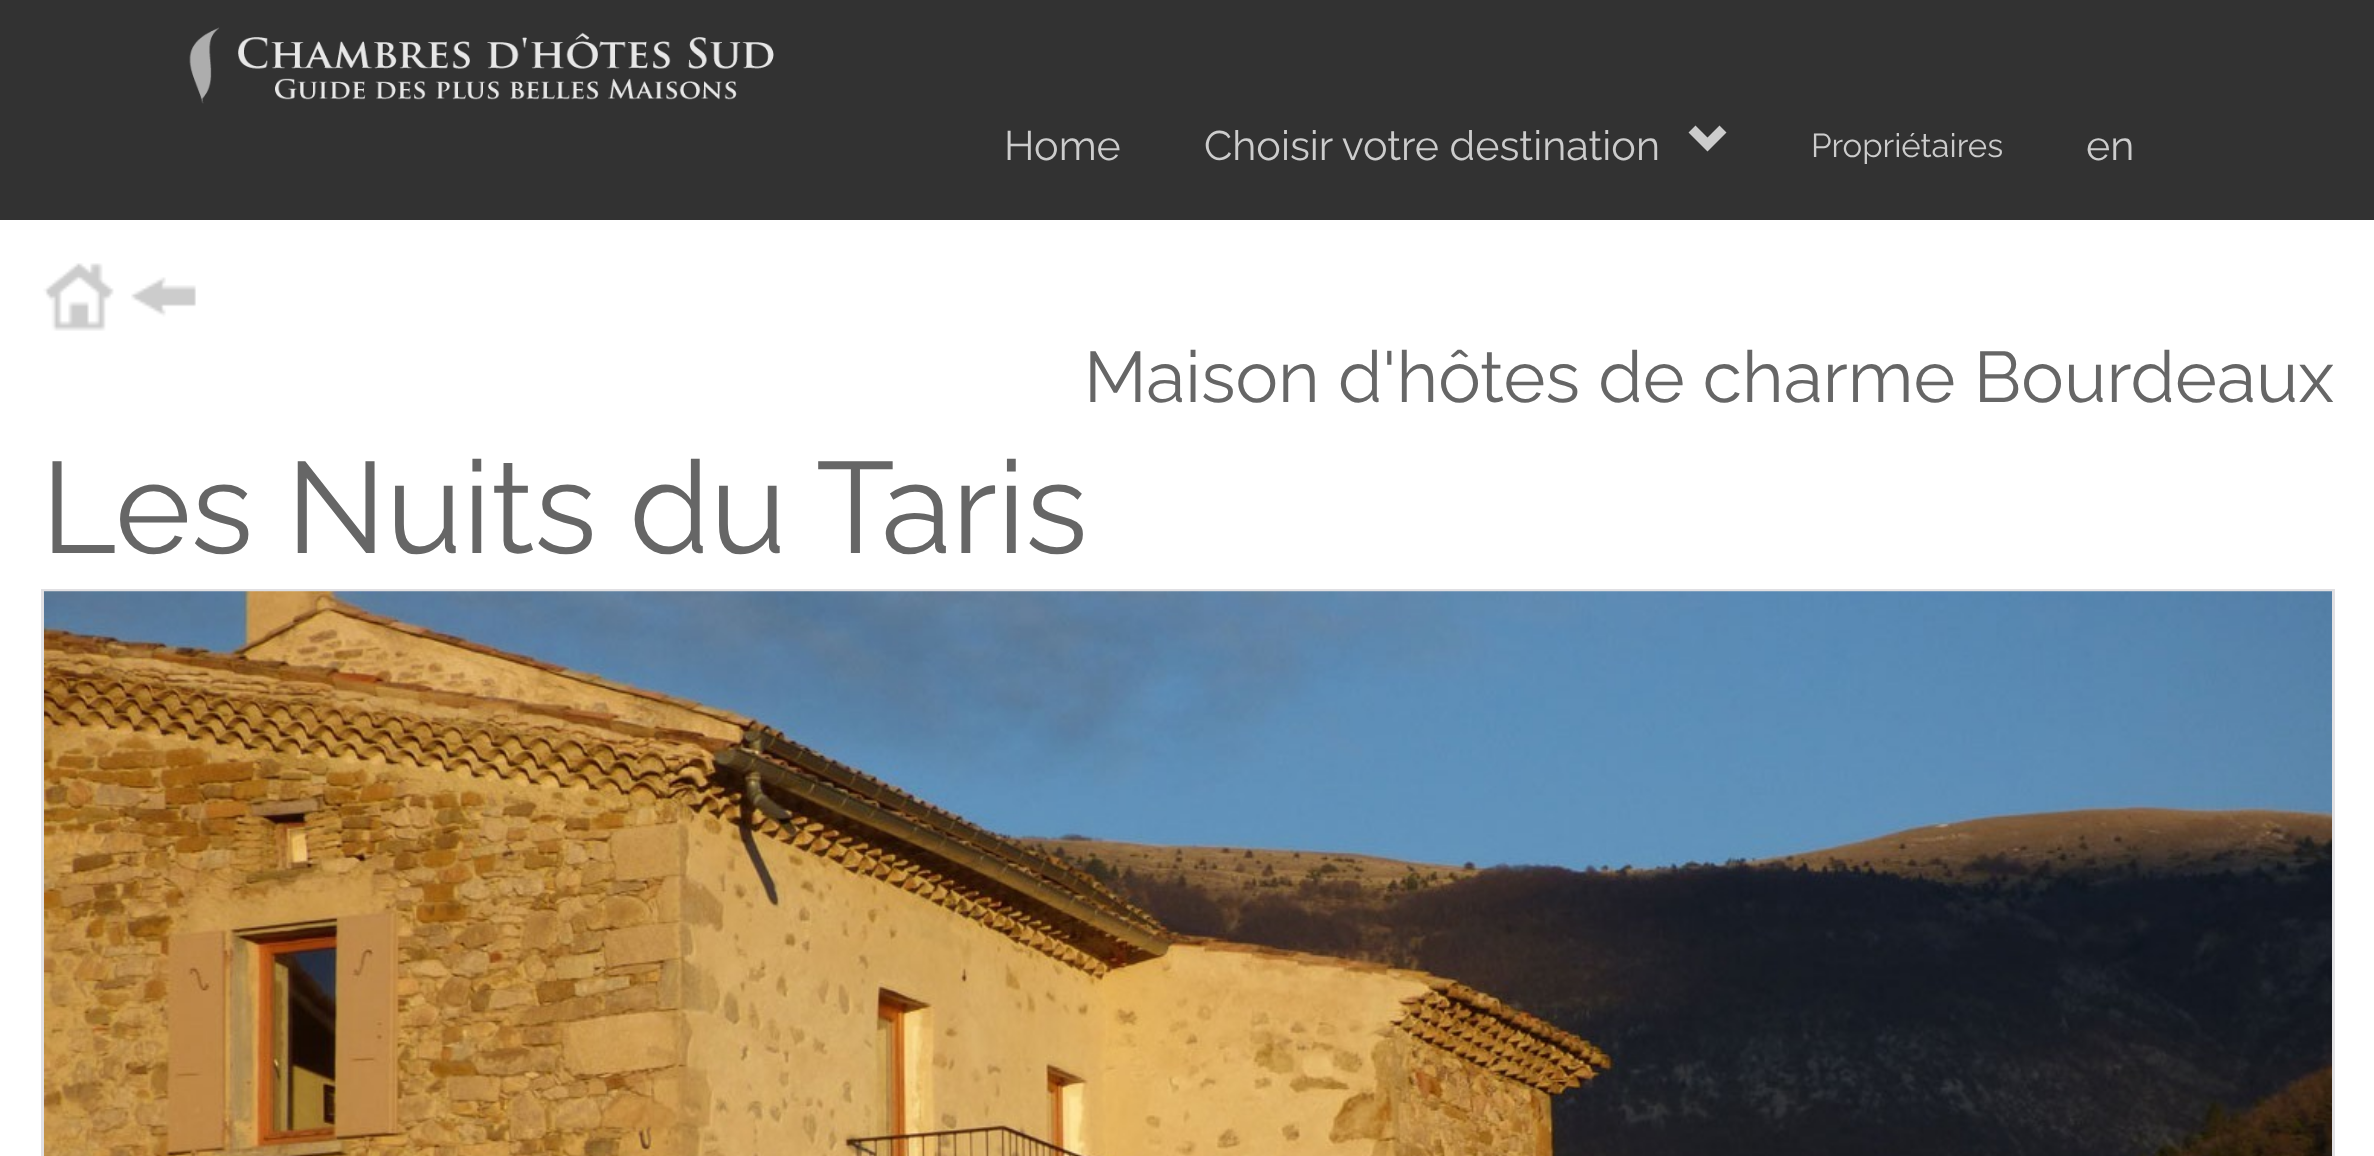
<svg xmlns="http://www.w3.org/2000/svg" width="2374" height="1156">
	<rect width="100%" height="100%" fill="#323232" />
	<rect x="0" y="220" width="2374" height="936" fill="#FFFFFF" />
	<image x="189" y="27" width="585" height="77" href="assets/img1.png" />
	<g font-family="Raleway" font-size="41.25" font-weight="100" fill="#CCCCCC">
		<text x="1004" y="160">Home</text>
		<text x="1204" y="160">Choisir votre destination</text>
	</g>
	<path d="M1726.5 132.5L1707.5 151.5L1688.5 132.5L1695.5 125.5L1707.5 137.5L1719.5 125.5Z" fill="#CCCCCC" />
	<text x="1811" y="157" font-family="Raleway" font-size="33" font-weight="100" fill="#CCCCCC">Propriétaires</text>
	<text x="2086" y="160" font-family="Raleway" font-size="41.25" font-weight="100" fill="#CCCCCC">en</text>
	<image x="43" y="263" width="71" height="68" href="assets/img2.png" />
	<image x="131" y="277" width="65" height="40" href="assets/img3.png" />
	<text x="1084" y="402" font-family="Raleway" font-size="71.5" font-weight="100" fill="#666666">Maison d'hôtes de charme Bourdeaux</text>
	<text x="41" y="553" font-family="Raleway" font-size="129.25" font-weight="100" fill="#666666">Les Nuits du Taris</text>
	<rect x="42.5" y="590.5" width="2291" height="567" fill="none" stroke="#E1E0E3" stroke-width="3" />
	<image x="44" y="591" width="2288" height="565" href="assets/img4.png" />
</svg>
